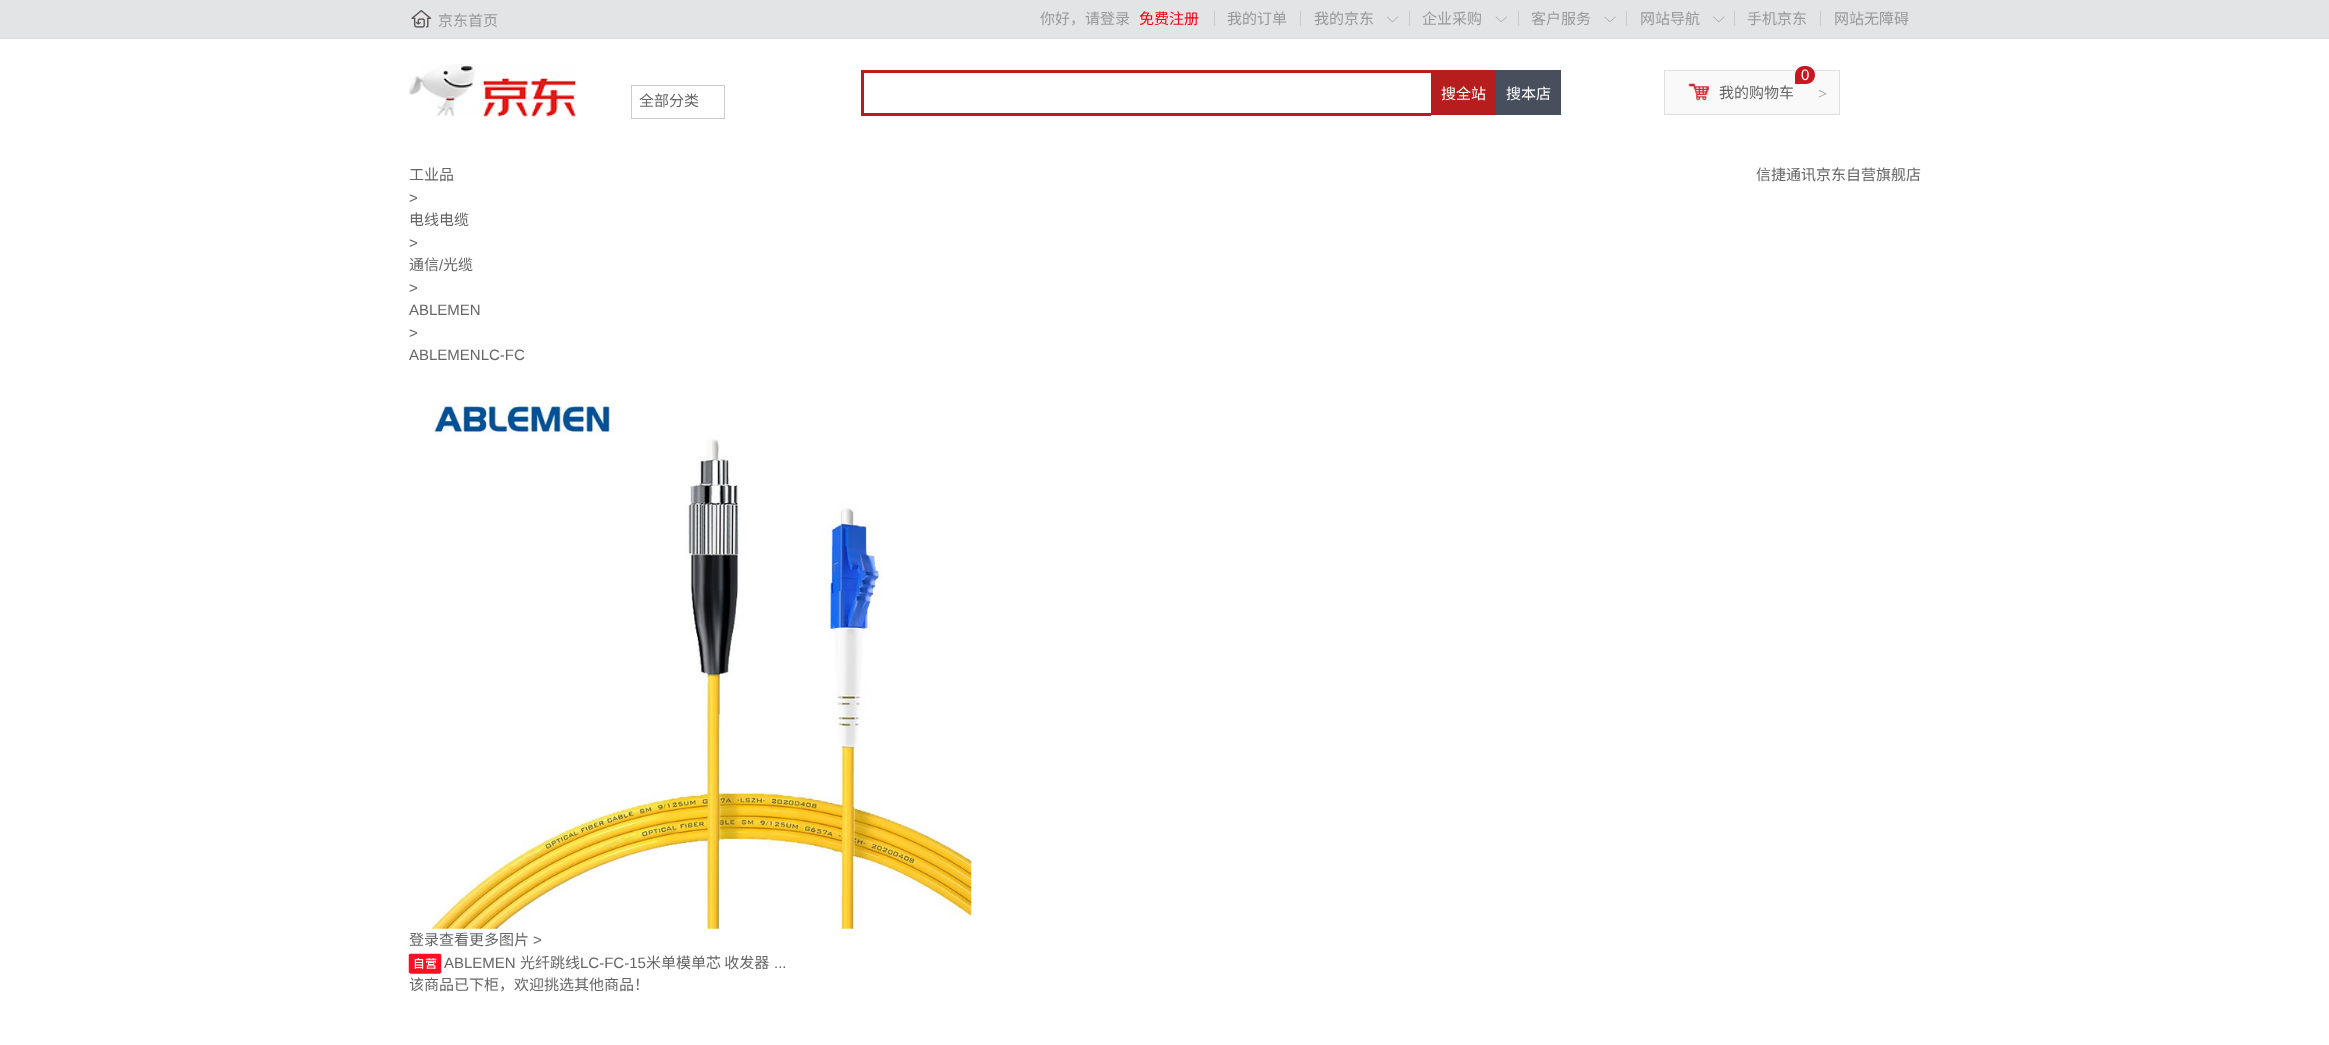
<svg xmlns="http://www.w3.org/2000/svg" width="2329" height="1045">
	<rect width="100%" height="100%" fill="#FFFFFF" />
	<rect x="0" y="0" width="2329" height="38" fill="#E3E4E5" />
	<rect x="0" y="38" width="2329" height="1" fill="#DDDDDD" />
	<image x="411" y="10" width="21" height="18" href="assets/img1.png" />
	<g font-family="Noto Sans CJK SC" font-size="15" fill="#999999">
		<text x="438" y="26">京东首页</text>
		<text x="1040" y="24">你好，请登录</text>
	</g>
	<text x="1139" y="24" font-family="Noto Sans CJK SC" font-size="15" fill="#F30213">免费注册</text>
	<rect x="1214" y="11" width="1" height="15" fill="#CCCCCC" />
	<text x="1227" y="24" font-family="Noto Sans CJK SC" font-size="15" fill="#999999">我的订单</text>
	<rect x="1300" y="11" width="1" height="15" fill="#CCCCCC" />
	<text x="1314" y="24" font-family="Noto Sans CJK SC" font-size="15" fill="#999999">我的京东</text>
	<image x="1387" y="16" width="11" height="7" href="assets/img2.png" />
	<rect x="1409" y="11" width="1" height="15" fill="#CCCCCC" />
	<text x="1422" y="24" font-family="Noto Sans CJK SC" font-size="15" fill="#999999">企业采购</text>
	<image x="1495" y="16" width="12" height="7" href="assets/img3.png" />
	<rect x="1518" y="11" width="1" height="15" fill="#CCCCCC" />
	<text x="1531" y="24" font-family="Noto Sans CJK SC" font-size="15" fill="#999999">客户服务</text>
	<image x="1604" y="16" width="12" height="6" href="assets/img4.png" />
	<rect x="1626" y="11" width="1" height="15" fill="#CCCCCC" />
	<text x="1640" y="24" font-family="Noto Sans CJK SC" font-size="15" fill="#999999">网站导航</text>
	<image x="1713" y="16" width="12" height="7" href="assets/img5.png" />
	<rect x="1734" y="11" width="1" height="15" fill="#CCCCCC" />
	<text x="1747" y="24" font-family="Noto Sans CJK SC" font-size="15" fill="#999999">手机京东</text>
	<rect x="1820" y="11" width="1" height="15" fill="#CCCCCC" />
	<text x="1834" y="24" font-family="Noto Sans CJK SC" font-size="15" fill="#999999">网站无障碍</text>
	<image x="408" y="64" width="169" height="53" href="assets/img6.png" />
	<rect x="631.5" y="85.5" width="93" height="33" fill="none" stroke="#CCCCCC" />
	<text x="639" y="106" font-family="Noto Sans CJK SC" font-size="15" fill="#666666">全部分类</text>
	<rect x="861" y="70" width="570" height="3" fill="#B61D1D" />
	<rect x="861" y="113" width="570" height="3" fill="#B61D1D" />
	<rect x="861" y="70" width="3" height="45" fill="#B61D1D" />
	<rect x="1431" y="70" width="65" height="45" fill="#B61D1D" />
	<text x="1441" y="99" font-family="Noto Sans CJK SC" font-size="15" fill="#FFFFFF">搜全站</text>
	<rect x="1496" y="70" width="65" height="45" fill="#474E5C" />
	<text x="1506" y="99" font-family="Noto Sans CJK SC" font-size="15" fill="#FFFFFF">搜本店</text>
	<rect x="1664.5" y="70.5" width="175" height="44" fill="#F9F9F9" stroke="#DFDFDF" />
	<path d="M1804 66H1806C1811 66 1815 70 1815 75C1815 80 1811 84 1806 84H1795V75C1795 70 1799 66 1804 66Z" fill="#C81623" />
	<text x="1801" y="80" font-family="Liberation Sans" font-size="15" fill="#FFFFFF">0</text>
	<image x="1688" y="83" width="21" height="18" href="assets/img7.png" />
	<text x="1719" y="98" font-family="Noto Sans CJK SC" font-size="15" fill="#666666">我的购物车</text>
	<text x="1818" y="99" font-family="Liberation Serif" font-size="16" fill="#999999">&gt;</text>
	<text x="409" y="180" font-family="Noto Sans CJK SC" font-size="15" fill="#666666">工业品</text>
	<text x="409" y="203" font-family="Liberation Sans" font-size="15" fill="#666666">&gt;</text>
	<text x="409" y="225" font-family="Noto Sans CJK SC" font-size="15" fill="#666666">电线电缆</text>
	<text x="409" y="248" font-family="Liberation Sans" font-size="15" fill="#666666">&gt;</text>
	<text x="409" y="270" font-family="Noto Sans CJK SC" font-size="15" fill="#666666">通信</text>
	<text x="439" y="270" font-family="Liberation Sans" font-size="15" fill="#666666">/</text>
	<text x="443" y="270" font-family="Noto Sans CJK SC" font-size="15" fill="#666666">光缆</text>
	<g font-family="Liberation Sans" font-size="15" fill="#666666">
		<text x="409" y="293">&gt;</text>
		<text x="409" y="315">ABLEMEN</text>
		<text x="409" y="338">&gt;</text>
		<text x="409" y="360">ABLEMENLC-FC</text>
	</g>
	<text x="1756" y="180" font-family="Noto Sans CJK SC" font-size="15" fill="#666666">信捷通讯京东自营旗舰店</text>
	<image x="430" y="400" width="542" height="529" href="assets/img8.png" />
	<text x="409" y="945" font-family="Noto Sans CJK SC" font-size="15" fill="#666666">登录查看更多图片</text>
	<text x="533" y="945" font-family="Liberation Sans" font-size="15" fill="#666666">&gt;</text>
	<image x="408" y="953" width="34" height="21" href="assets/img9.png" />
	<text x="444" y="968" font-family="Liberation Sans" font-size="15" fill="#666666">ABLEMEN</text>
	<text x="520" y="968" font-family="Noto Sans CJK SC" font-size="15" fill="#666666">光纤跳线</text>
	<text x="580" y="968" font-family="Liberation Sans" font-size="15" fill="#666666">LC-FC-15</text>
	<text x="646" y="968" font-family="Noto Sans CJK SC" font-size="15" fill="#666666">米单模单芯 收发器</text>
	<text x="774" y="968" font-family="Liberation Sans" font-size="15" fill="#666666">...</text>
	<text x="409" y="990" font-family="Noto Sans CJK SC" font-size="15" fill="#666666">该商品已下柜，欢迎挑选其他商品！</text>
</svg>
